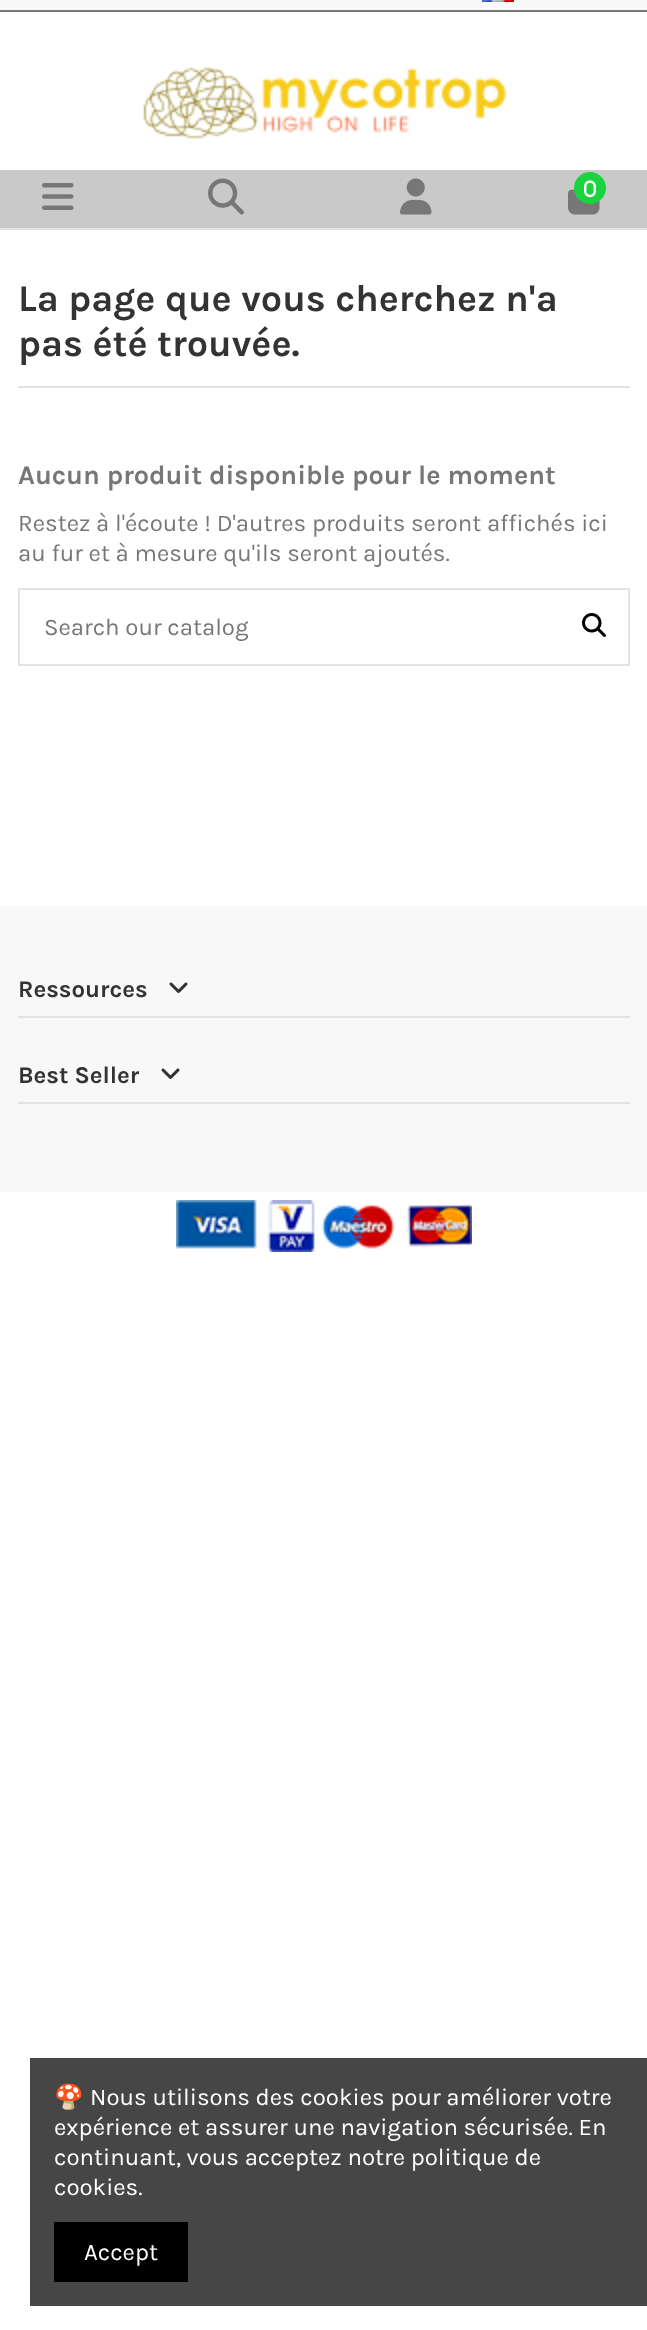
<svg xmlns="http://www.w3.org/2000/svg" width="647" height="2330">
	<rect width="100%" height="100%" fill="#FFFFFF" />
	<rect x="0" y="0" width="647" height="10" fill="#F8F8F8" />
	<rect x="0" y="10" width="647" height="2" fill="#777777" />
	<image x="482" y="0" width="32" height="2" href="assets/img1.png" />
	<rect x="0" y="228" width="647" height="2" fill="#E3E3E3" />
	<image x="143" y="67" width="364" height="72" href="assets/img2.png" />
	<rect x="0" y="170" width="647" height="58" fill="#C9C9C9" />
	<image x="42" y="183" width="32" height="27" href="assets/img3.png" />
	<image x="208" y="178" width="36" height="37" href="assets/img4.png" />
	<image x="400" y="178" width="32" height="37" href="assets/img5.png" />
	<image x="568" y="189" width="32" height="26" href="assets/img7.png" />
	<circle cx="590" cy="188" r="16" fill="#1BD33F" />
	<image x="584" y="180" width="12" height="18" href="assets/img6.png" />
	<rect x="18" y="386" width="612" height="2" fill="#E3E3E3" />
	<g font-family="Karla" font-size="37.75" font-weight="700" fill="#333333">
		<text x="18" y="311">La page que vous cherchez n'a</text>
		<text x="18" y="356">pas été trouvée.</text>
	</g>
	<text x="18" y="484" font-family="Karla" font-size="27" font-weight="700" fill="#777777">Aucun produit disponible pour le moment</text>
	<g font-family="Karla" font-size="24" fill="#777777">
		<text x="18" y="531">Restez à l'écoute ! D'autres produits seront affichés ici</text>
		<text x="18" y="561">au fur et à mesure qu'ils seront ajoutés.</text>
	</g>
	<rect x="19" y="589" width="610" height="76" fill="none" stroke="#E3E3E3" stroke-width="2" />
	<text x="44" y="635" font-family="Karla" font-size="24" fill="#777777">Search our catalog</text>
	<image x="582" y="613" width="24" height="24" href="assets/img8.png" />
	<rect x="0" y="906" width="647" height="286" fill="#F8F8F8" />
	<rect x="18" y="1016" width="612" height="2" fill="#E3E3E3" />
	<text x="18" y="997" font-family="Karla" font-size="24" font-weight="700" fill="#333333">Ressources</text>
	<image x="169" y="982" width="19" height="11" href="assets/img9.png" />
	<rect x="18" y="1102" width="612" height="2" fill="#E3E3E3" />
	<text x="18" y="1083" font-family="Karla" font-size="24" font-weight="700" fill="#333333">Best Seller</text>
	<image x="161" y="1068" width="19" height="11" href="assets/img9.png" />
	<image x="176" y="1200" width="296" height="52" href="assets/img10.png" />
	<rect x="30" y="2058" width="617" height="248" fill="#464646" />
	<text x="54" y="2105" font-family="Noto Color Emoji" font-size="24" fill="#FFFFFF">🍄</text>
	<g font-family="Karla" font-size="24" fill="#FFFFFF">
		<text x="90" y="2105">Nous utilisons des cookies pour améliorer votre</text>
		<text x="54" y="2135">expérience et assurer une navigation sécurisée. En</text>
		<text x="54" y="2165">continuant, vous acceptez notre politique de</text>
		<text x="54" y="2195">cookies.</text>
	</g>
	<rect x="54" y="2222" width="134" height="60" fill="#000000" />
	<text x="84" y="2260" font-family="Karla" font-size="24" fill="#FFFFFF">Accept</text>
</svg>
